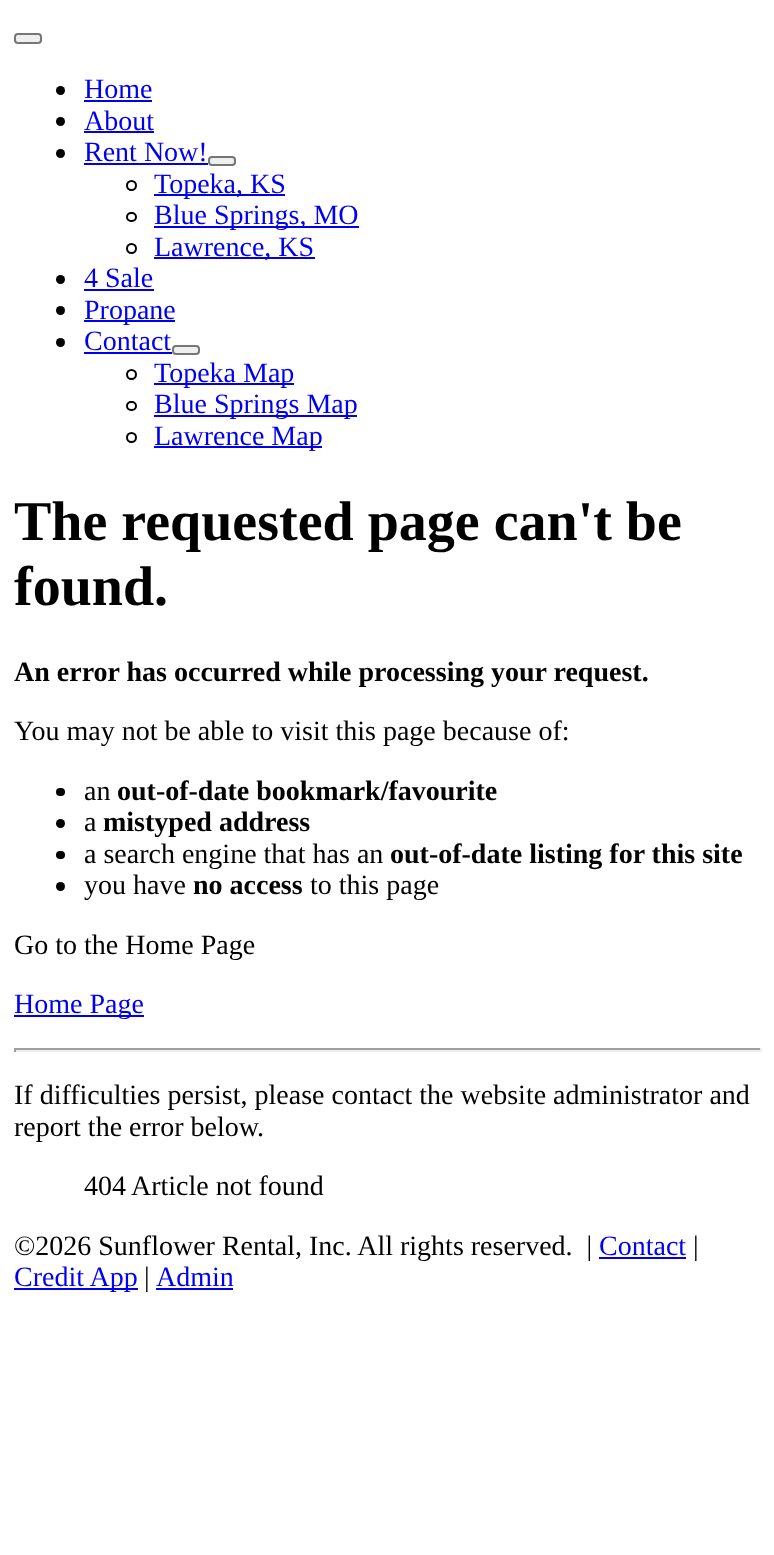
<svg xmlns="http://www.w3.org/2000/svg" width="774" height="1555">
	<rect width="100%" height="100%" fill="#FFFFFF" />
	<rect x="15" y="34" width="26" height="9" rx="3" fill="#EFEFEF" stroke="#767676" stroke-width="2" />
	<circle cx="60.5" cy="90.5" r="4.5" fill="#000000" />
	<text x="84" y="98" font-family="Liberation Serif" font-size="28" fill="#0000EE">Home</text>
	<rect x="84" y="100" width="68" height="2" fill="#0000EE" />
	<circle cx="60.5" cy="121.5" r="4.5" fill="#000000" />
	<text x="84" y="130" font-family="Liberation Serif" font-size="28" fill="#0000EE">About</text>
	<rect x="84" y="131" width="70" height="2" fill="#0000EE" />
	<circle cx="60.5" cy="153.5" r="4.5" fill="#000000" />
	<text x="84" y="161" font-family="Liberation Serif" font-size="28" fill="#0000EE">Rent Now!</text>
	<rect x="84" y="163" width="124" height="2" fill="#0000EE" />
	<rect x="209" y="157" width="26" height="8" rx="3" fill="#EFEFEF" stroke="#767676" stroke-width="2" />
	<circle cx="131.5" cy="185.5" r="4.5" fill="none" stroke="#000000" stroke-width="2" />
	<rect x="154" y="194" width="131" height="2" fill="#0000EE" />
	<text x="154" y="193" font-family="Liberation Serif" font-size="28" fill="#0000EE">Topeka, KS</text>
	<rect x="127" y="213" width="9" height="8" rx="4" fill="none" stroke="#000000" stroke-width="2" />
	<rect x="154" y="226" width="205" height="2" fill="#0000EE" />
	<text x="154" y="224" font-family="Liberation Serif" font-size="28" fill="#0000EE">Blue Springs, MO</text>
	<circle cx="131.5" cy="248.5" r="4.5" fill="none" stroke="#000000" stroke-width="2" />
	<rect x="154" y="257" width="161" height="2" fill="#0000EE" />
	<text x="154" y="256" font-family="Liberation Serif" font-size="28" fill="#0000EE">Lawrence, KS</text>
	<circle cx="60.5" cy="279.5" r="4.5" fill="#000000" />
	<text x="84" y="287" font-family="Liberation Serif" font-size="28" fill="#0000EE">4 Sale</text>
	<rect x="84" y="289" width="70" height="2" fill="#0000EE" />
	<circle cx="60.5" cy="310.5" r="4.5" fill="#000000" />
	<rect x="84" y="320" width="91" height="2" fill="#0000EE" />
	<text x="84" y="319" font-family="Liberation Serif" font-size="28" fill="#0000EE">Propane</text>
	<circle cx="60.5" cy="342.5" r="4.5" fill="#000000" />
	<text x="84" y="350" font-family="Liberation Serif" font-size="28" fill="#0000EE">Contact</text>
	<rect x="84" y="352" width="88" height="2" fill="#0000EE" />
	<rect x="173" y="346" width="26" height="8" rx="3" fill="#EFEFEF" stroke="#767676" stroke-width="2" />
	<circle cx="131.5" cy="374.5" r="4.5" fill="none" stroke="#000000" stroke-width="2" />
	<rect x="154" y="383" width="140" height="2" fill="#0000EE" />
	<text x="154" y="382" font-family="Liberation Serif" font-size="28" fill="#0000EE">Topeka Map</text>
	<rect x="127" y="402" width="9" height="8" rx="4" fill="none" stroke="#000000" stroke-width="2" />
	<rect x="154" y="415" width="203" height="2" fill="#0000EE" />
	<text x="154" y="413" font-family="Liberation Serif" font-size="28" fill="#0000EE">Blue Springs Map</text>
	<circle cx="131.5" cy="437.5" r="4.5" fill="none" stroke="#000000" stroke-width="2" />
	<rect x="154" y="446" width="168" height="2" fill="#0000EE" />
	<text x="154" y="445" font-family="Liberation Serif" font-size="28" fill="#0000EE">Lawrence Map</text>
	<g font-family="Liberation Serif" font-size="56" font-weight="700" fill="#000000">
		<text x="14" y="540">The requested page can't be</text>
		<text x="14" y="605">found.</text>
	</g>
	<text x="14" y="681" font-family="Liberation Serif" font-size="28" font-weight="700" fill="#000000">An error has occurred while processing your request.</text>
	<text x="14" y="740" font-family="Liberation Serif" font-size="28" fill="#000000">You may not be able to visit this page because of:</text>
	<rect x="56" y="788" width="9" height="8" rx="4" fill="#000000" />
	<text x="84" y="800" font-family="Liberation Serif" font-size="28" fill="#000000">an</text>
	<text x="117" y="800" font-family="Liberation Serif" font-size="28" font-weight="700" fill="#000000">out-of-date bookmark/favourite</text>
	<circle cx="60.5" cy="823.5" r="4.5" fill="#000000" />
	<text x="84" y="831" font-family="Liberation Serif" font-size="28" fill="#000000">a</text>
	<text x="103" y="831" font-family="Liberation Serif" font-size="28" font-weight="700" fill="#000000">mistyped address</text>
	<rect x="56" y="851" width="9" height="8" rx="4" fill="#000000" />
	<text x="84" y="863" font-family="Liberation Serif" font-size="28" fill="#000000">a search engine that has an</text>
	<text x="390" y="863" font-family="Liberation Serif" font-size="28" font-weight="700" fill="#000000">out-of-date listing for this site</text>
	<circle cx="60.5" cy="886.5" r="4.5" fill="#000000" />
	<text x="84" y="894" font-family="Liberation Serif" font-size="28" fill="#000000">you have</text>
	<text x="193" y="894" font-family="Liberation Serif" font-size="28" font-weight="700" fill="#000000">no access</text>
	<g font-family="Liberation Serif" font-size="28" fill="#000000">
		<text x="310" y="894">to this page</text>
		<text x="14" y="954">Go to the Home Page</text>
	</g>
	<rect x="14" y="1015" width="130" height="2" fill="#0000EE" />
	<text x="14" y="1013" font-family="Liberation Serif" font-size="28" fill="#0000EE">Home Page</text>
	<rect x="14" y="1048" width="747" height="2" fill="#9F9F9F" />
	<rect x="760" y="1048" width="2" height="4" fill="#EEEEEE" />
	<rect x="14" y="1050" width="747" height="2" fill="#EEEEEE" />
	<rect x="14" y="1048" width="2" height="4" fill="#9F9F9F" />
	<g font-family="Liberation Serif" font-size="28" fill="#000000">
		<text x="14" y="1104">If difficulties persist, please contact the website administrator and</text>
		<text x="14" y="1136">report the error below.</text>
		<text x="84" y="1195">404</text>
		<text x="131" y="1195">Article not found</text>
		<text x="14" y="1255" xml:space="preserve">©2026 Sunflower Rental, Inc. All rights reserved.  |</text>
	</g>
	<text x="599" y="1255" font-family="Liberation Serif" font-size="28" fill="#0000EE">Contact</text>
	<rect x="599" y="1257" width="87" height="2" fill="#0000EE" />
	<text x="693" y="1255" font-family="Liberation Serif" font-size="28" fill="#000000">|</text>
	<rect x="14" y="1288" width="124" height="2" fill="#0000EE" />
	<text x="14" y="1286" font-family="Liberation Serif" font-size="28" fill="#0000EE">Credit App</text>
	<text x="144" y="1286" font-family="Liberation Serif" font-size="28" fill="#000000">|</text>
	<text x="156" y="1286" font-family="Liberation Serif" font-size="28" fill="#0000EE">Admin</text>
	<rect x="156" y="1288" width="77" height="2" fill="#0000EE" />
</svg>
